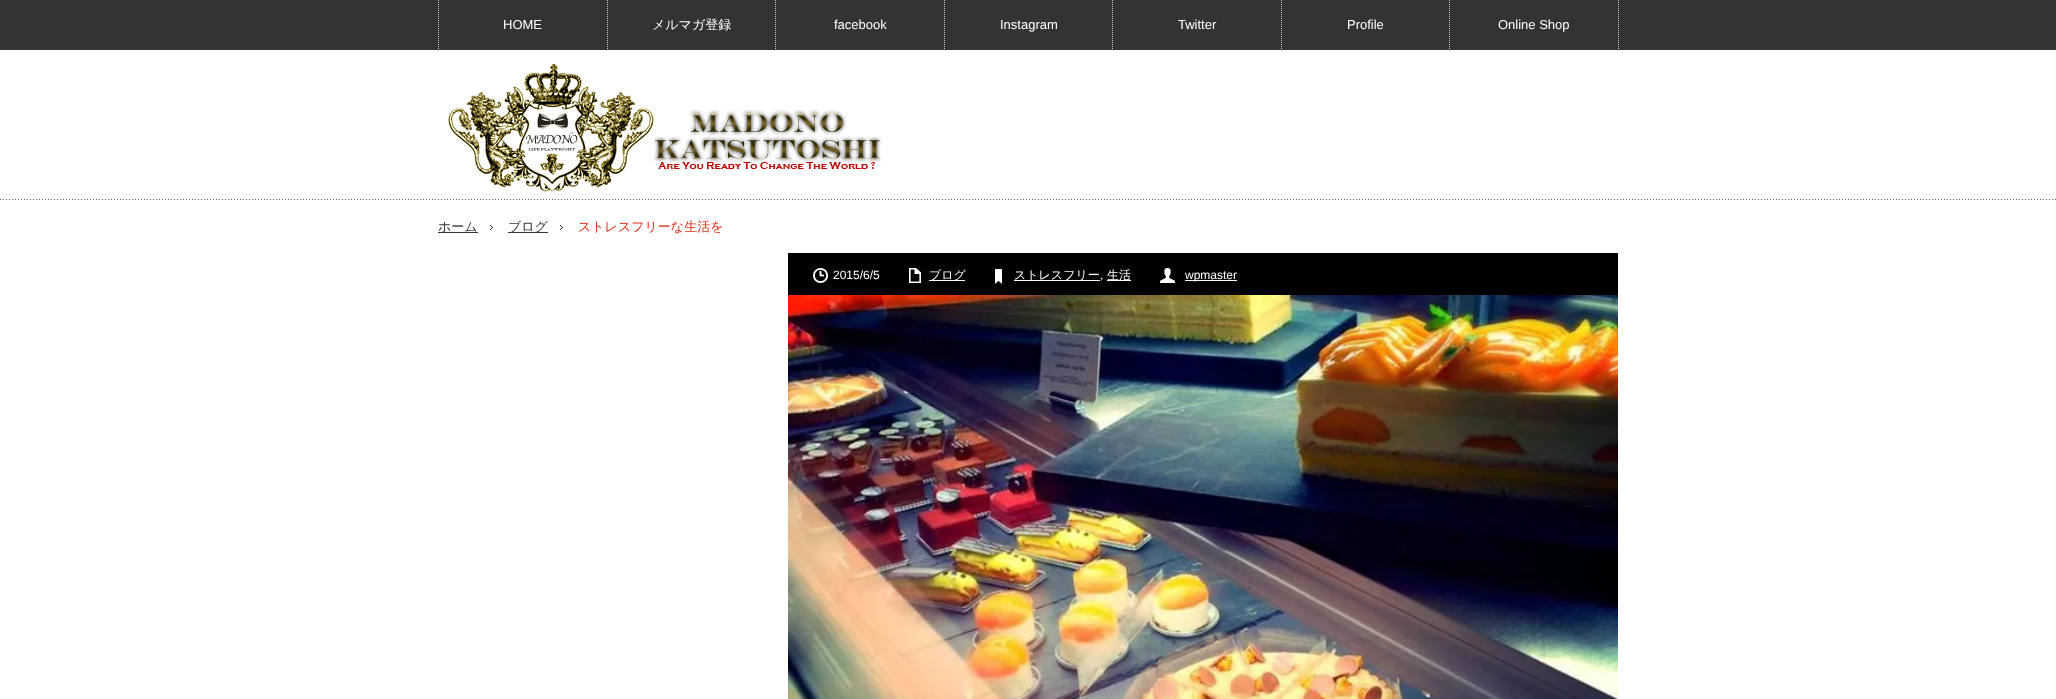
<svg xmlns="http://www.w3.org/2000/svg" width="2056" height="699">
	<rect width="100%" height="100%" fill="#FFFFFF" />
	<rect x="0" y="0" width="2056" height="50" fill="#333333" />
	<path d="M1618.5 0V50" fill="none" stroke="#CCCCCC" stroke-dasharray="1 1" />
	<path d="M438.5 0V50" fill="none" stroke="#CCCCCC" stroke-dasharray="1 1" />
	<text x="503" y="29" font-family="Liberation Sans" font-size="13" fill="#FFFFFF">HOME</text>
	<path d="M607.5 0V50" fill="none" stroke="#CCCCCC" stroke-dasharray="1 1" />
	<text x="652" y="29" font-family="WenQuanYi Zen Hei" font-size="13" font-weight="500" fill="#FFFFFF">メルマガ登録</text>
	<path d="M775.5 0V50" fill="none" stroke="#CCCCCC" stroke-dasharray="1 1" />
	<text x="834" y="29" font-family="Liberation Sans" font-size="13" fill="#FFFFFF">facebook</text>
	<path d="M944.5 0V50" fill="none" stroke="#CCCCCC" stroke-dasharray="1 1" />
	<text x="1000" y="29" font-family="Liberation Sans" font-size="13" fill="#FFFFFF">Instagram</text>
	<path d="M1112.5 0V50" fill="none" stroke="#CCCCCC" stroke-dasharray="1 1" />
	<text x="1178" y="29" font-family="Liberation Sans" font-size="13" fill="#FFFFFF">Twitter</text>
	<path d="M1281.5 0V50" fill="none" stroke="#CCCCCC" stroke-dasharray="1 1" />
	<text x="1347" y="29" font-family="Liberation Sans" font-size="13" fill="#FFFFFF">Profile</text>
	<path d="M1449.5 0V50" fill="none" stroke="#CCCCCC" stroke-dasharray="1 1" />
	<text x="1498" y="29" font-family="Liberation Sans" font-size="13" fill="#FFFFFF">Online Shop</text>
	<image x="0" y="199" width="2056" height="1" href="assets/img1.png" />
	<image x="448" y="63" width="434" height="129" href="assets/img2.png" />
	<image x="490" y="225" width="3" height="5" href="assets/img3.png" />
	<rect x="438" y="232" width="40" height="1" fill="#333333" />
	<text x="438" y="231" font-family="WenQuanYi Zen Hei" font-size="13" font-weight="500" fill="#333333">ホーム</text>
	<image x="560" y="225" width="3" height="5" href="assets/img3.png" />
	<rect x="508" y="232" width="40" height="1" fill="#333333" />
	<text x="508" y="231" font-family="WenQuanYi Zen Hei" font-size="13" font-weight="500" fill="#333333">ブログ</text>
	<text x="578" y="231" font-family="WenQuanYi Zen Hei" font-size="13" font-weight="500" fill="#E02E14">ストレスフリーな生活を</text>
	<rect x="788" y="253" width="830" height="42" fill="#000000" />
	<image x="813" y="268" width="15" height="15" href="assets/img4.png" />
	<text x="833" y="279" font-family="Liberation Sans" font-size="12" fill="#FFFFFF">2015/6/5</text>
	<image x="909" y="268" width="12" height="15" href="assets/img5.png" />
	<rect x="929" y="280" width="36" height="1" fill="#FFFFFF" />
	<text x="929" y="279" font-family="WenQuanYi Zen Hei" font-size="12" font-weight="500" fill="#FFFFFF">ブログ</text>
	<image x="995" y="269" width="7" height="15" href="assets/img6.png" />
	<rect x="1014" y="280" width="86" height="1" fill="#FFFFFF" />
	<text x="1014" y="279" font-family="WenQuanYi Zen Hei" font-size="12" font-weight="500" fill="#FFFFFF">ストレスフリー</text>
	<text x="1100" y="279" font-family="Liberation Sans" font-size="12" fill="#FFFFFF">,</text>
	<rect x="1107" y="280" width="24" height="1" fill="#FFFFFF" />
	<text x="1107" y="279" font-family="WenQuanYi Zen Hei" font-size="12" font-weight="500" fill="#FFFFFF">生活</text>
	<image x="1160" y="268" width="15" height="15" href="assets/img7.png" />
	<rect x="1185" y="280" width="52" height="1" fill="#FFFFFF" />
	<text x="1185" y="279" font-family="Liberation Sans" font-size="12" fill="#FFFFFF">wpmaster</text>
	<image x="788" y="295" width="830" height="404" href="assets/img8.png" />
</svg>
